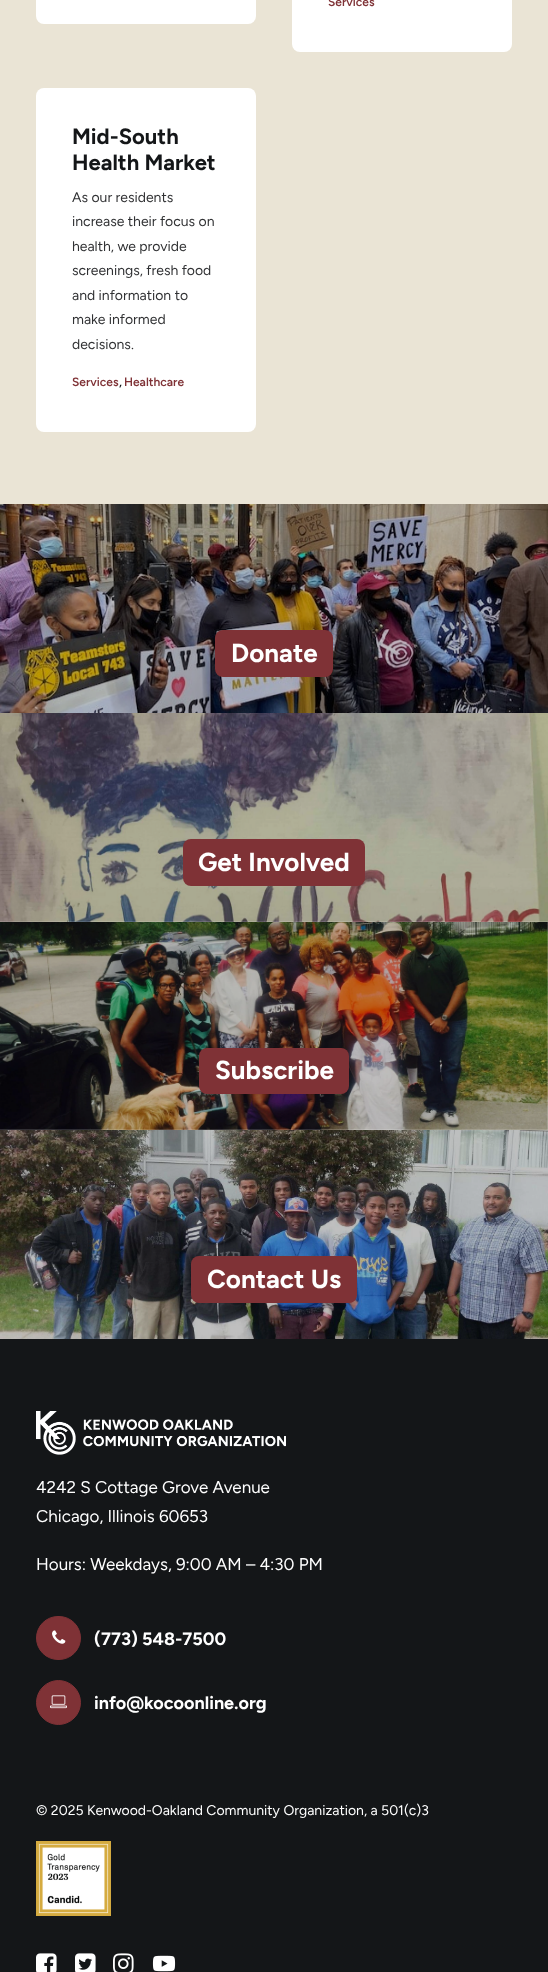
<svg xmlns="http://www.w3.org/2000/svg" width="548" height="1972">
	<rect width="100%" height="100%" fill="#FFFFFF" />
	<rect x="0" y="0" width="548" height="504" fill="#EAE4D5" />
	<rect x="36" y="-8" width="220" height="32" rx="8" fill="#FFFFFF" />
	<rect x="292" y="-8" width="220" height="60" rx="8" fill="#FFFFFF" />
	<text x="328" y="6" font-family="Figtree" font-size="12" font-weight="600" fill="#7F3236">Services</text>
	<rect x="36" y="88" width="220" height="344" rx="8" fill="#FFFFFF" />
	<g font-family="Figtree" font-size="22" font-weight="700" fill="#141618">
		<text x="72" y="144">Mid-South</text>
		<text x="72" y="170">Health Market</text>
	</g>
	<g font-family="Figtree" font-size="14" fill="#303133">
		<text x="72" y="202">As our residents</text>
		<text x="72" y="226">increase their focus on</text>
		<text x="72" y="251">health, we provide</text>
		<text x="72" y="275">screenings, fresh food</text>
		<text x="72" y="300">and information to</text>
		<text x="72" y="324">make informed</text>
		<text x="72" y="349">decisions.</text>
	</g>
	<text x="72" y="386" font-family="Figtree" font-size="12" font-weight="600" fill="#7F3236">Services</text>
	<text x="119" y="386" font-family="Figtree" font-size="12" font-weight="600" fill="#141618">,</text>
	<text x="124" y="386" font-family="Figtree" font-size="12" font-weight="600" fill="#7F3236">Healthcare</text>
	<image x="0" y="504" width="548" height="209" href="assets/img1.png" />
	<rect x="215" y="630" width="118" height="47" rx="8" fill="#7F3236" />
	<text x="231" y="662" font-family="Figtree" font-size="26" font-weight="700" fill="#FFFFFF">Donate</text>
	<image x="0" y="713" width="548" height="209" href="assets/img2.png" />
	<rect x="183" y="839" width="182" height="47" rx="8" fill="#7F3236" />
	<text x="198" y="871" font-family="Figtree" font-size="26" font-weight="700" fill="#FFFFFF">Get Involved</text>
	<image x="0" y="922" width="548" height="208" href="assets/img3.png" />
	<rect x="199" y="1048" width="150" height="46" rx="8" fill="#7F3236" />
	<text x="215" y="1079" font-family="Figtree" font-size="26" font-weight="700" fill="#FFFFFF">Subscribe</text>
	<image x="0" y="1130" width="548" height="209" href="assets/img4.png" />
	<rect x="191" y="1256" width="166" height="47" rx="8" fill="#7F3236" />
	<text x="207" y="1288" font-family="Figtree" font-size="26" font-weight="700" fill="#FFFFFF">Contact Us</text>
	<rect x="0" y="1339" width="548" height="633" fill="#141618" />
	<image x="36" y="1411" width="250" height="44" href="assets/img5.png" />
	<g font-family="Figtree" font-size="17" fill="#FFFFFF">
		<text x="36" y="1493">4242 S Cottage Grove Avenue</text>
		<text x="36" y="1522">Chicago, Illinois 60653</text>
		<text x="36" y="1570">Hours: Weekdays, 9:00 AM – 4:30 PM</text>
	</g>
	<rect x="36.5" y="1616.5" width="44" height="43" rx="21.5" fill="#7F3236" stroke="#7F3236" />
	<image x="52" y="1630" width="14" height="14" href="assets/img6.png" />
	<text x="94" y="1645" font-family="Figtree" font-size="18" font-weight="700" fill="#FFFFFF">(773) 548-7500</text>
	<circle cx="58.5" cy="1702.5" r="22" fill="#7F3236" stroke="#7F3236" />
	<image x="50" y="1695" width="17" height="14" href="assets/img7.png" />
	<text x="94" y="1709" font-family="Figtree" font-size="18" font-weight="700" fill="#FFFFFF">info@kocoonline.org</text>
	<text x="36" y="1815" font-family="Figtree" font-size="14" fill="#FFFFFF">© 2025 Kenwood-Oakland Community Organization, a 501(c)3</text>
	<image x="36" y="1841" width="75" height="75" href="assets/img8.png" />
	<image x="36" y="1953" width="21" height="19" href="assets/img9.png" />
	<image x="75" y="1953" width="21" height="19" href="assets/img10.png" />
	<image x="113" y="1953" width="21" height="19" href="assets/img11.png" />
	<image x="152" y="1955" width="24" height="17" href="assets/img12.png" />
</svg>
